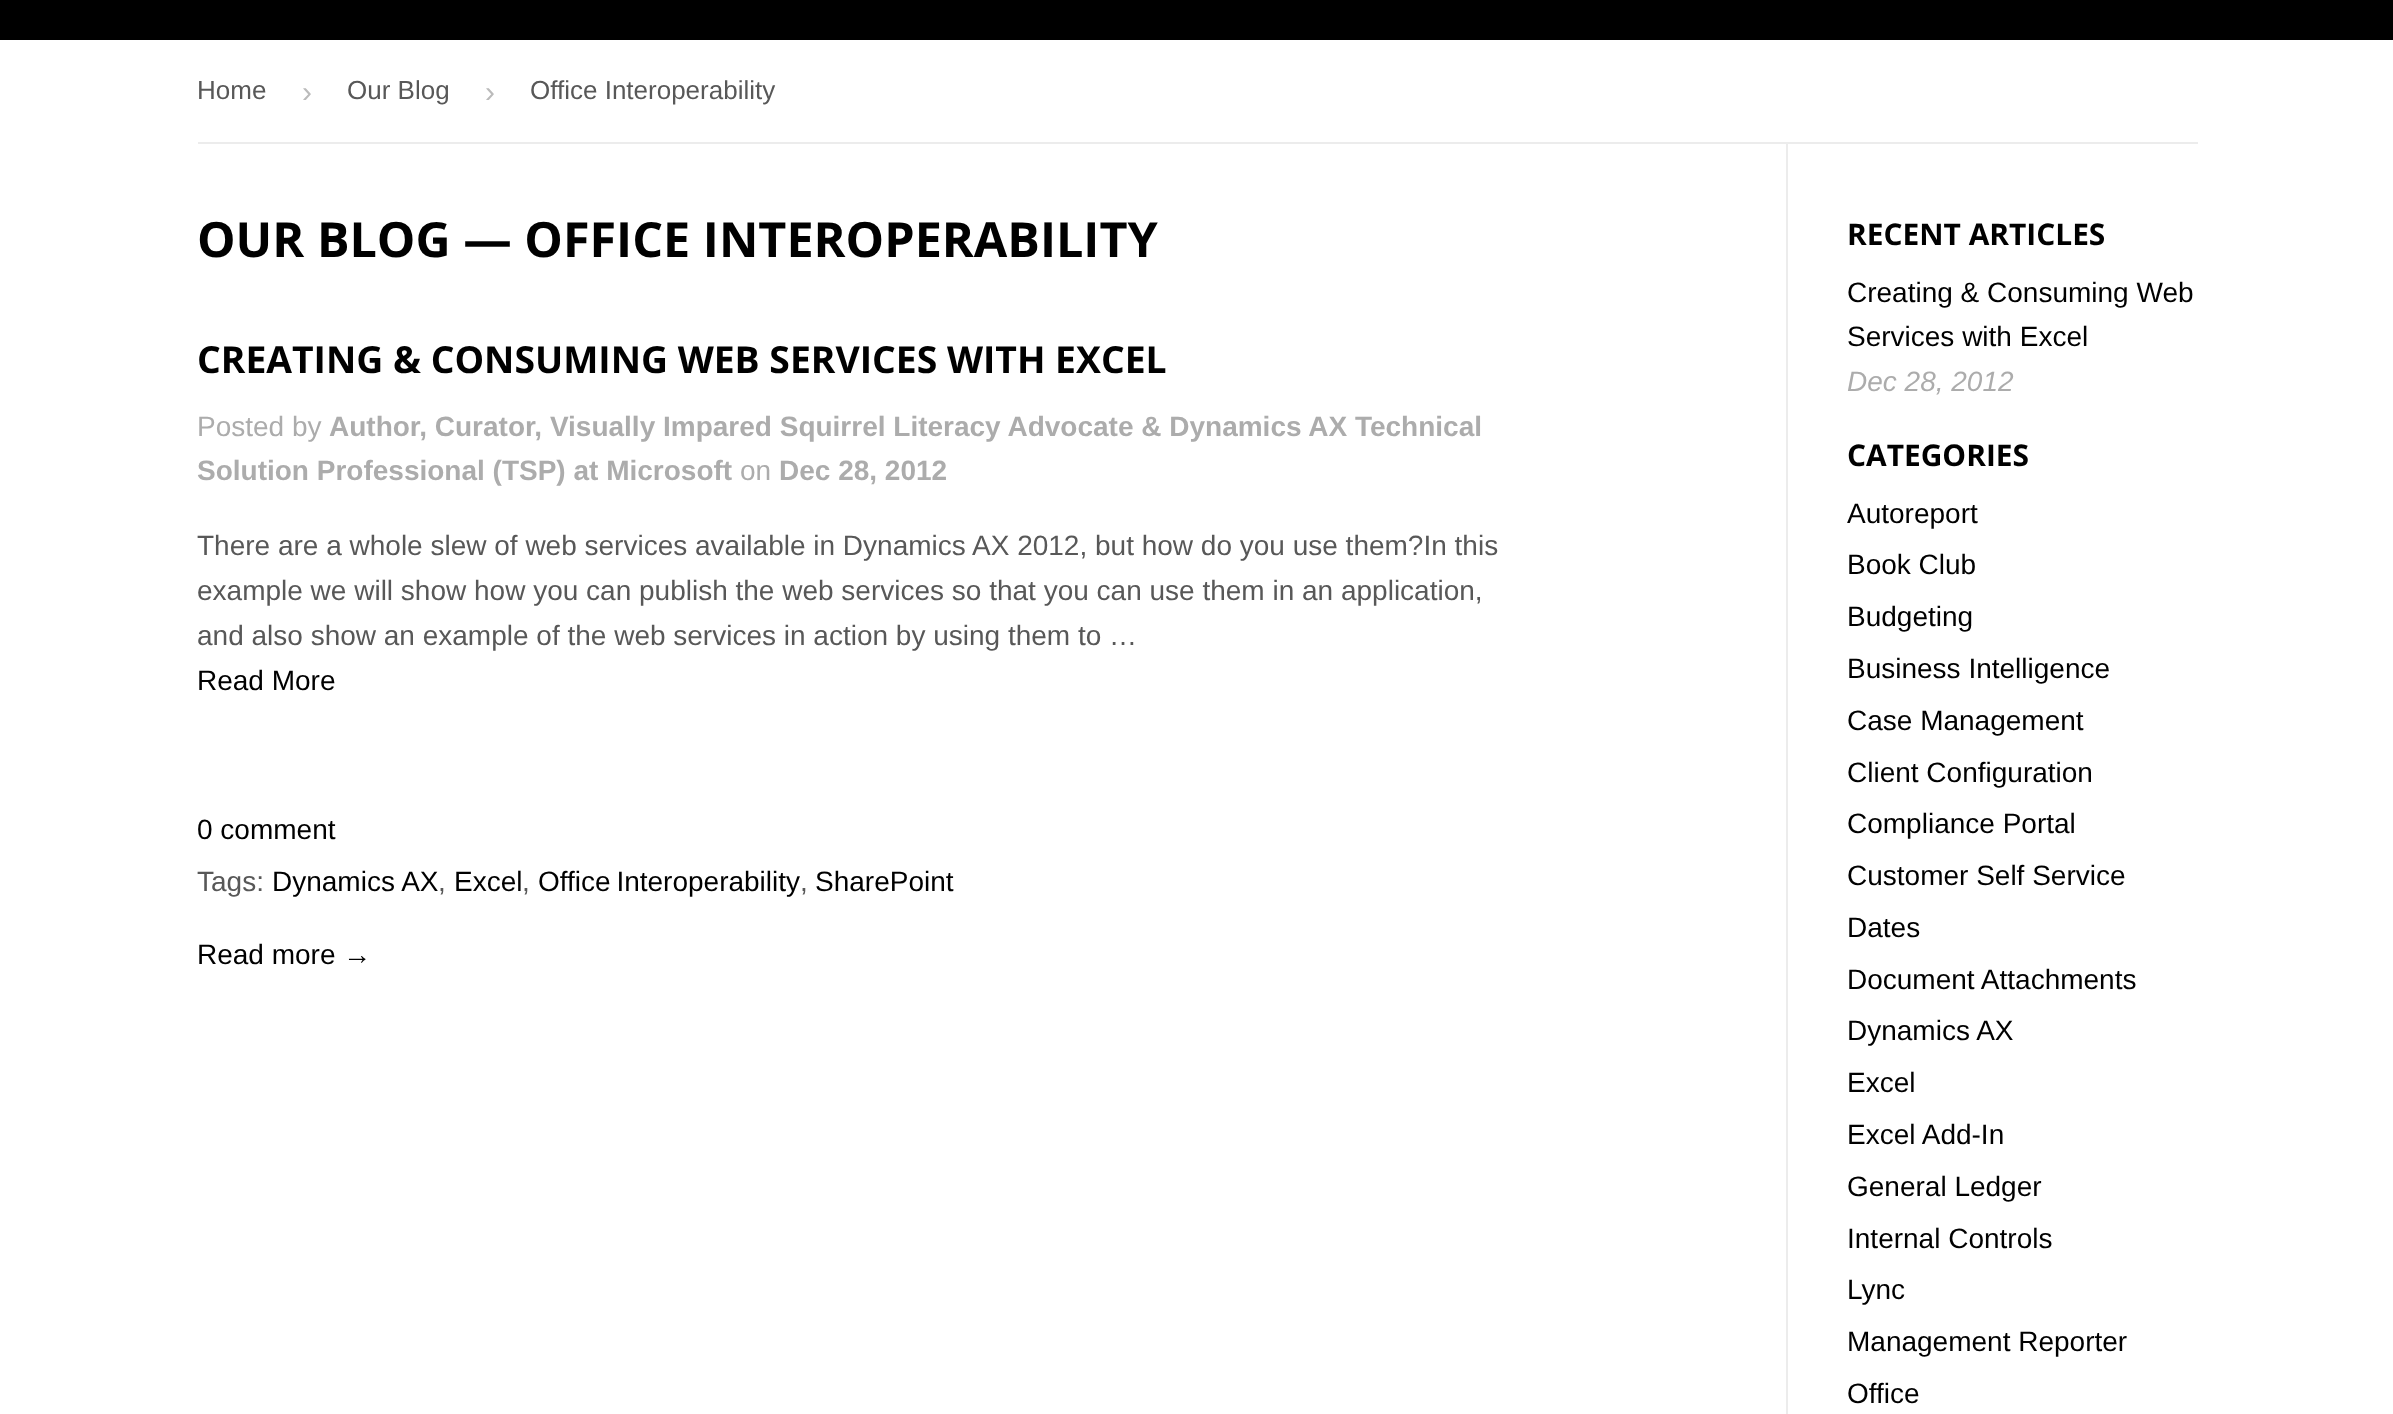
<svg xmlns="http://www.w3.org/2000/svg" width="2393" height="1414">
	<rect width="100%" height="100%" fill="#FFFFFF" />
	<rect x="0" y="0" width="2393" height="40" fill="#000000" />
	<rect x="198" y="142" width="2000" height="2" fill="#ECECEC" />
	<text x="197" y="99" font-family="Liberation Sans" font-size="26" fill="#585858">Home</text>
	<text x="302" y="102" font-family="Liberation Sans" font-size="30" fill="#BBBBBB">›</text>
	<text x="347" y="99" font-family="Liberation Sans" font-size="26" fill="#585858">Our Blog</text>
	<text x="485" y="102" font-family="Liberation Sans" font-size="30" fill="#BBBBBB">›</text>
	<text x="530" y="99" font-family="Liberation Sans" font-size="26" fill="#585858">Office Interoperability</text>
	<text x="197" y="257" font-family="Open Sans" font-size="48.5" font-weight="700" fill="#000000">OUR BLOG — OFFICE INTEROPERABILITY</text>
	<text x="197" y="373" font-family="Open Sans" font-size="37.3" font-weight="700" fill="#000000">CREATING &amp; CONSUMING WEB SERVICES WITH EXCEL</text>
	<text x="197" y="436" font-family="Liberation Sans" font-size="28" fill="#ACACAC">Posted by</text>
	<g font-family="Liberation Sans" font-size="28" font-weight="700" fill="#ACACAC">
		<text x="329" y="436">Author, Curator, Visually Impared Squirrel Literacy Advocate &amp; Dynamics AX Technical</text>
		<text x="197" y="480">Solution Professional (TSP) at Microsoft</text>
	</g>
	<text x="740" y="480" font-family="Liberation Sans" font-size="28" fill="#ACACAC">on</text>
	<text x="779" y="480" font-family="Liberation Sans" font-size="28" font-weight="700" fill="#ACACAC">Dec 28, 2012</text>
	<g font-family="Liberation Sans" font-size="28" fill="#585858">
		<text x="197" y="555">There are a whole slew of web services available in Dynamics AX 2012, but how do you use them?In this</text>
		<text x="197" y="600">example we will show how you can publish the web services so that you can use them in an application,</text>
		<text x="197" y="645">and also show an example of the web services in action by using them to …</text>
	</g>
	<g font-family="Liberation Sans" font-size="28" fill="#000000">
		<text x="197" y="690">Read More</text>
		<text x="197" y="839">0 comment</text>
	</g>
	<text x="197" y="891" font-family="Liberation Sans" font-size="28" fill="#585858">Tags:</text>
	<text x="272" y="891" font-family="Liberation Sans" font-size="28" fill="#000000">Dynamics AX</text>
	<text x="438" y="891" font-family="Liberation Sans" font-size="28" fill="#585858">,</text>
	<text x="454" y="891" font-family="Liberation Sans" font-size="28" fill="#000000">Excel</text>
	<text x="522" y="891" font-family="Liberation Sans" font-size="28" fill="#585858">,</text>
	<text x="538" y="891" word-spacing="-2" font-family="Liberation Sans" font-size="28" fill="#000000">Office Interoperability</text>
	<text x="800" y="891" font-family="Liberation Sans" font-size="28" fill="#585858">,</text>
	<g font-family="Liberation Sans" font-size="28" fill="#000000">
		<text x="815" y="891">SharePoint</text>
		<text x="197" y="964">Read more →</text>
	</g>
	<rect x="1786" y="144" width="2" height="1270" fill="#ECECEC" />
	<text x="1847" y="245" font-family="Open Sans" font-size="29.9" font-weight="700" fill="#000000">RECENT ARTICLES</text>
	<g font-family="Liberation Sans" font-size="28" fill="#000000">
		<text x="1847" y="302">Creating &amp; Consuming Web</text>
		<text x="1847" y="346">Services with Excel</text>
	</g>
	<text x="1847" y="391" font-family="Liberation Sans" font-size="28" font-style="italic" fill="#ACACAC">Dec 28, 2012</text>
	<text x="1847" y="466" font-family="Open Sans" font-size="29.9" font-weight="700" fill="#000000">CATEGORIES</text>
	<g font-family="Liberation Sans" font-size="28" fill="#000000">
		<text x="1847" y="523">Autoreport</text>
		<text x="1847" y="574">Book Club</text>
		<text x="1847" y="626">Budgeting</text>
		<text x="1847" y="678">Business Intelligence</text>
		<text x="1847" y="730">Case Management</text>
		<text x="1847" y="782">Client Configuration</text>
		<text x="1847" y="833">Compliance Portal</text>
		<text x="1847" y="885">Customer Self Service</text>
		<text x="1847" y="937">Dates</text>
		<text x="1847" y="989">Document Attachments</text>
		<text x="1847" y="1040">Dynamics AX</text>
		<text x="1847" y="1092">Excel</text>
		<text x="1847" y="1144">Excel Add-In</text>
		<text x="1847" y="1196">General Ledger</text>
		<text x="1847" y="1248">Internal Controls</text>
		<text x="1847" y="1299">Lync</text>
		<text x="1847" y="1351">Management Reporter</text>
		<text x="1847" y="1403">Office</text>
	</g>
</svg>
